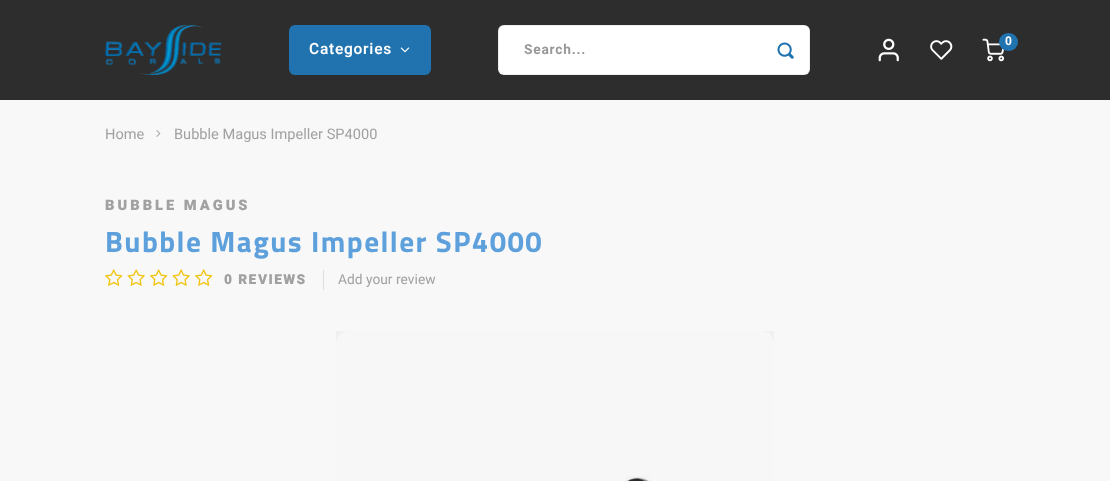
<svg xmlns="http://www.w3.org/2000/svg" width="1110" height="481">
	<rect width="100%" height="100%" fill="#F8F8F8" />
	<rect x="0" y="0" width="1110" height="100" fill="#2D2D2D" />
	<image x="105" y="25" width="117" height="50" href="assets/img1.png" />
	<image x="878" y="38" width="21" height="24" href="assets/img2.png" />
	<image x="930" y="40" width="23" height="20" href="assets/img3.png" />
	<image x="982" y="38" width="23" height="24" href="assets/img4.png" />
	<rect x="999" y="33" width="19" height="18" rx="9" fill="#2173AF" />
	<text x="1005" y="45" font-family="Heebo" font-size="12" font-weight="700" fill="#FFFFFF">0</text>
	<rect x="289" y="25" width="142" height="50" rx="6" fill="#2173AF" />
	<text x="309" y="54" font-family="Heebo" font-size="15.5" font-weight="600" letter-spacing="0.75" fill="#FFFFFF">Categories</text>
	<image x="400" y="47" width="10" height="6" href="assets/img5.png" />
	<rect x="498" y="25" width="312" height="50" rx="6" fill="#FFFFFF" />
	<rect x="498.5" y="25.5" width="311" height="49" rx="5.5" fill="none" stroke="#000000" stroke-opacity="0.07" />
	<text x="524" y="54" font-family="Heebo" font-size="13.75" font-weight="700" letter-spacing="0.75" fill="#999999">Search...</text>
	<image x="777" y="42" width="17" height="17" href="assets/img6.png" />
	<text x="105" y="139" font-family="Heebo" font-size="14.6" fill="#A1A1A1">Home</text>
	<image x="156" y="130" width="5" height="7" href="assets/img7.png" />
	<text x="174" y="139" font-family="Heebo" font-size="14.6" fill="#A1A1A1">Bubble Magus Impeller SP4000</text>
	<text x="105" y="210" font-family="Heebo" font-size="14.6" font-weight="900" letter-spacing="3" fill="#A1A1A1">BUBBLE MAGUS</text>
	<text x="105" y="252" font-family="Titillium Web" font-size="29.25" font-weight="700" letter-spacing="1.45" fill="#5DA0DB">Bubble Magus Impeller SP4000</text>
	<image x="105" y="269" width="18" height="17" href="assets/img8.png" />
	<image x="127" y="269" width="18" height="17" href="assets/img9.png" />
	<image x="150" y="269" width="18" height="17" href="assets/img8.png" />
	<image x="172" y="269" width="18" height="17" href="assets/img9.png" />
	<image x="195" y="269" width="18" height="17" href="assets/img8.png" />
	<rect x="323" y="270" width="1" height="20" fill="#DDDDDD" />
	<text x="224" y="284" font-family="Heebo" font-size="13.75" font-weight="900" letter-spacing="1.4" fill="#A1A1A1">0 REVIEWS</text>
	<text x="338" y="284" font-family="Heebo" font-size="13.75" fill="#A1A1A1">Add your review</text>
	<rect x="336" y="331" width="438" height="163" rx="13" fill="#FFFFFF" />
	<image x="625" y="476" width="26" height="5" href="assets/img10.png" />
	<rect x="336" y="331" width="438" height="150" fill="#000000" fill-opacity="0.03" />
</svg>
